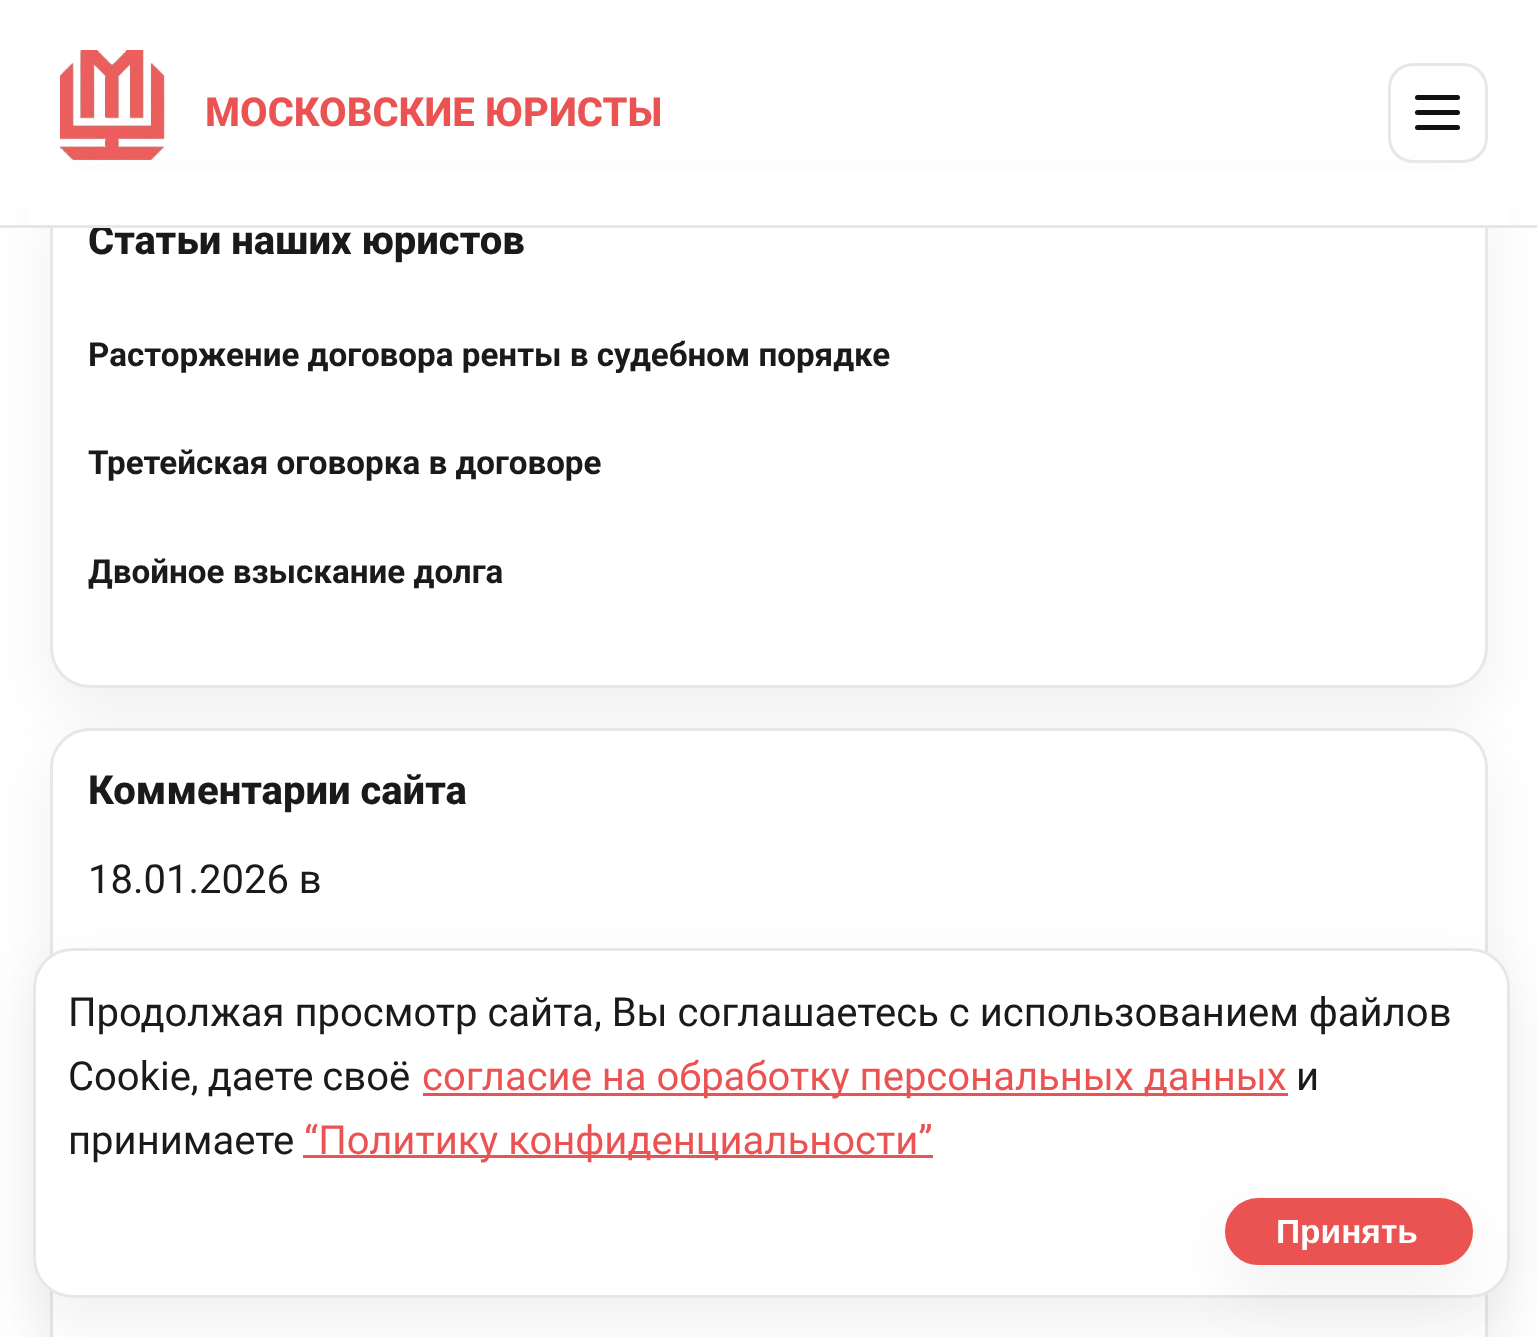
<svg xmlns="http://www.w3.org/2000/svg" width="1537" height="1337">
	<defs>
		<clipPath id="clip1"><path d="M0 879H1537V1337H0ZM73 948H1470C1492 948 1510 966 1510 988V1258C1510 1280 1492 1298 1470 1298H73C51 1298 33 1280 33 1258V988C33 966 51 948 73 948Z" clip-rule="evenodd" /></clipPath>
	</defs>
	<rect width="100%" height="100%" fill="#FFFFFF" />
	<rect x="50" y="200" width="1438" height="513" rx="40" fill="#000000" fill-opacity="0.06" filter="blur(31px)" />
	<rect x="51.5" y="176.5" width="1435" height="510" rx="38.5" fill="#FFFFFF" stroke="#E5E7EB" stroke-width="3" />
	<rect x="29" y="170" width="1480" height="55" fill="#FFFFFF" />
	<text x="88" y="254" font-family="Roboto" font-size="40" font-weight="800" fill="#1A1A1A">Статьи наших юристов</text>
	<rect x="0" y="225" width="1537" height="3" fill="#E5E7EB" />
	<image x="60" y="50" width="105" height="111" href="assets/img1.png" />
	<text x="205" y="126" font-family="Roboto" font-size="40" font-weight="800" fill="#EB5353">МОСКОВСКИЕ ЮРИСТЫ</text>
	<rect x="1389.5" y="64.5" width="97" height="97" rx="23.5" fill="none" stroke="#E5E7EB" stroke-width="3" />
	<rect x="1415" y="110" width="45" height="5" rx="2.5" fill="#111111" />
	<rect x="1415" y="95" width="45" height="5" rx="2.5" fill="#111111" />
	<rect x="1415" y="125" width="45" height="5" rx="2.5" fill="#111111" />
	<g font-family="Roboto" font-size="33.2" font-weight="700" fill="#1A1A1A">
		<text x="88" y="366">Расторжение договора ренты в судебном порядке</text>
		<text x="88" y="474">Третейская оговорка в договоре</text>
		<text x="88" y="583">Двойное взыскание долга</text>
	</g>
	<rect x="50" y="753" width="1438" height="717" rx="40" fill="#000000" fill-opacity="0.06" filter="blur(31px)" />
	<rect x="51.5" y="729.5" width="1435" height="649" rx="38.5" fill="#FFFFFF" stroke="#E5E7EB" stroke-width="3" />
	<text x="88" y="804" font-family="Roboto" font-size="40" font-weight="800" fill="#1A1A1A">Комментарии сайта</text>
	<text x="88" y="893" font-family="Roboto" font-size="40" fill="#1A1A1A">18.01.2026 в</text>
	<g clip-path="url(#clip1)">
		<rect x="33" y="973" width="1477" height="350" rx="40" fill="#000000" fill-opacity="0.06" filter="blur(31px)" />
	</g>
	<rect x="34.5" y="949.5" width="1474" height="347" rx="38.5" fill="#FFFFFF" stroke="#E5E7EB" stroke-width="3" />
	<g font-family="Roboto" font-size="40" fill="#1A1A1A">
		<text x="68" y="1026">Продолжая просмотр сайта, Вы соглашаетесь с использованием файлов</text>
		<text x="68" y="1090" word-spacing="-1">Cookie, даете своё</text>
	</g>
	<rect x="423" y="1093" width="865" height="3" fill="#EB5353" />
	<text x="422" y="1090" font-family="Roboto" font-size="40" fill="#EB5353">согласие на обработку персональных данных</text>
	<g font-family="Roboto" font-size="40" fill="#1A1A1A">
		<text x="1296" y="1090">и</text>
		<text x="68" y="1154">принимаете</text>
	</g>
	<rect x="303" y="1155" width="630" height="3" fill="#EB5353" />
	<text x="304" y="1154" font-family="Roboto" font-size="40" fill="#EB5353">“Политику конфиденциальности”</text>
	<rect x="1225" y="1223" width="248" height="67" rx="33.5" fill="#000000" fill-opacity="0.06" filter="blur(31px)" />
	<rect x="1226.5" y="1199.5" width="245" height="64" rx="32" fill="#EB5353" stroke="#EB5353" stroke-width="3" />
	<text x="1276" y="1243" font-family="Liberation Sans" font-size="33.5" font-weight="700" fill="#FFFFFF">Принять</text>
</svg>
